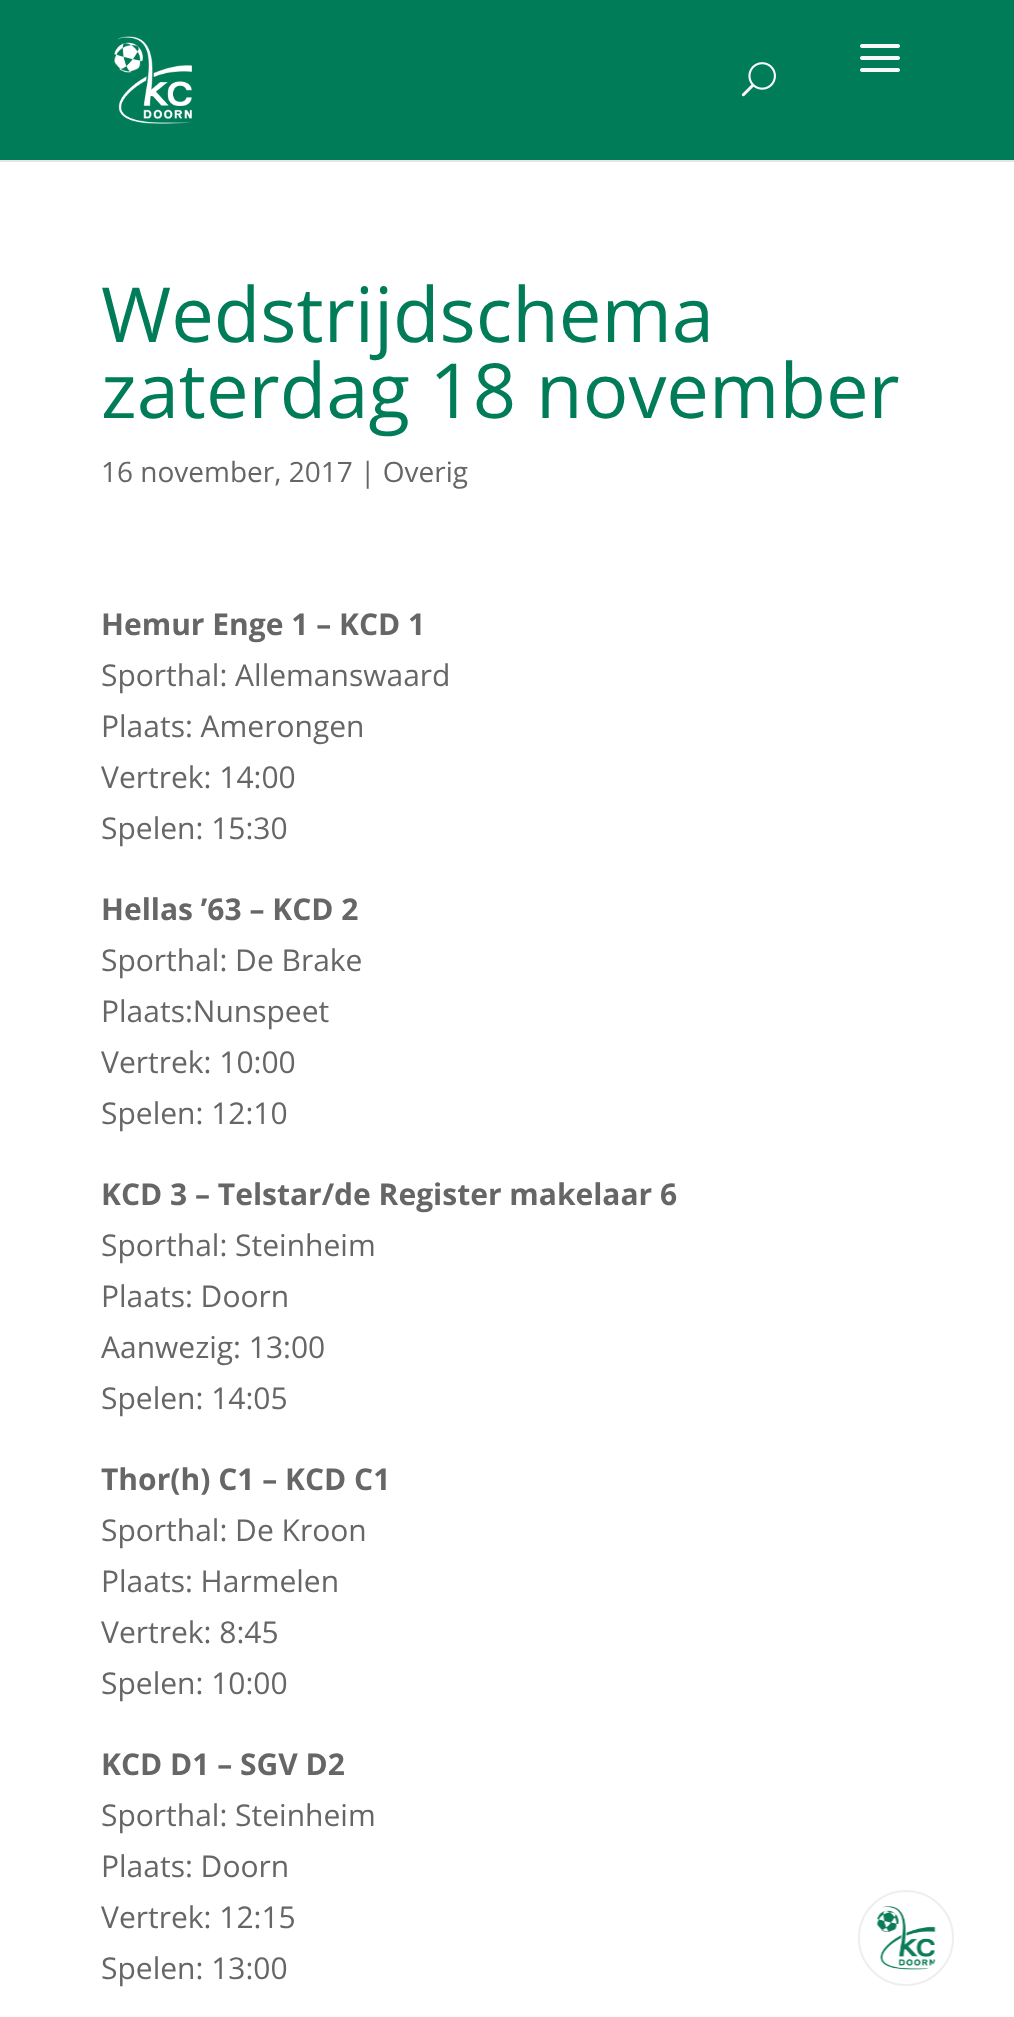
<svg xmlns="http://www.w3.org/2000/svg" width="1014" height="2017">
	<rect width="100%" height="100%" fill="#FFFFFF" />
	<rect x="0" y="160" width="1014" height="2" fill="#E6E6E6" />
	<rect x="0" y="0" width="1014" height="160" fill="#007C58" />
	<image x="113" y="36" width="79" height="88" href="assets/img1.png" />
	<image x="860" y="44" width="40" height="28" href="assets/img2.png" />
	<image x="741" y="62" width="35" height="35" href="assets/img3.png" />
	<g font-family="Open Sans" font-size="76" fill="#007C58">
		<text x="101" y="342">Wedstrijdschema</text>
		<text x="101" y="418">zaterdag 18 november</text>
	</g>
	<text x="101" y="482" font-family="Open Sans" font-size="28" fill="#666666">16 november, 2017 | Overig</text>
	<text x="101" y="635" font-family="Open Sans" font-size="30" font-weight="700" fill="#666666">Hemur Enge 1 – KCD 1</text>
	<g font-family="Open Sans" font-size="30" fill="#666666">
		<text x="101" y="686">Sporthal: Allemanswaard</text>
		<text x="101" y="737">Plaats: Amerongen</text>
		<text x="101" y="788">Vertrek: 14:00</text>
		<text x="101" y="839">Spelen: 15:30</text>
	</g>
	<text x="101" y="920" font-family="Open Sans" font-size="30" font-weight="700" fill="#666666">Hellas ’63 – KCD 2</text>
	<g font-family="Open Sans" font-size="30" fill="#666666">
		<text x="101" y="971">Sporthal: De Brake</text>
		<text x="101" y="1022">Plaats:Nunspeet</text>
		<text x="101" y="1073">Vertrek: 10:00</text>
		<text x="101" y="1124">Spelen: 12:10</text>
	</g>
	<text x="101" y="1205" font-family="Open Sans" font-size="30" font-weight="700" fill="#666666">KCD 3 – Telstar/de Register makelaar 6</text>
	<g font-family="Open Sans" font-size="30" fill="#666666">
		<text x="101" y="1256">Sporthal: Steinheim</text>
		<text x="101" y="1307">Plaats: Doorn</text>
		<text x="101" y="1358">Aanwezig: 13:00</text>
		<text x="101" y="1409">Spelen: 14:05</text>
	</g>
	<text x="101" y="1490" font-family="Open Sans" font-size="30" font-weight="700" fill="#666666">Thor(h) C1 – KCD C1</text>
	<g font-family="Open Sans" font-size="30" fill="#666666">
		<text x="101" y="1541">Sporthal: De Kroon</text>
		<text x="101" y="1592">Plaats: Harmelen</text>
		<text x="101" y="1643">Vertrek: 8:45</text>
		<text x="101" y="1694">Spelen: 10:00</text>
	</g>
	<text x="101" y="1775" font-family="Open Sans" font-size="30" font-weight="700" fill="#666666">KCD D1 – SGV D2</text>
	<g font-family="Open Sans" font-size="30" fill="#666666">
		<text x="101" y="1826">Sporthal: Steinheim</text>
		<text x="101" y="1877">Plaats: Doorn</text>
		<text x="101" y="1928">Vertrek: 12:15</text>
		<text x="101" y="1979">Spelen: 13:00</text>
	</g>
	<circle cx="906" cy="1938" r="47" fill="none" stroke="#EEEEEE" stroke-width="2" />
	<image x="876" y="1906" width="60" height="64" href="assets/img4.png" />
</svg>
